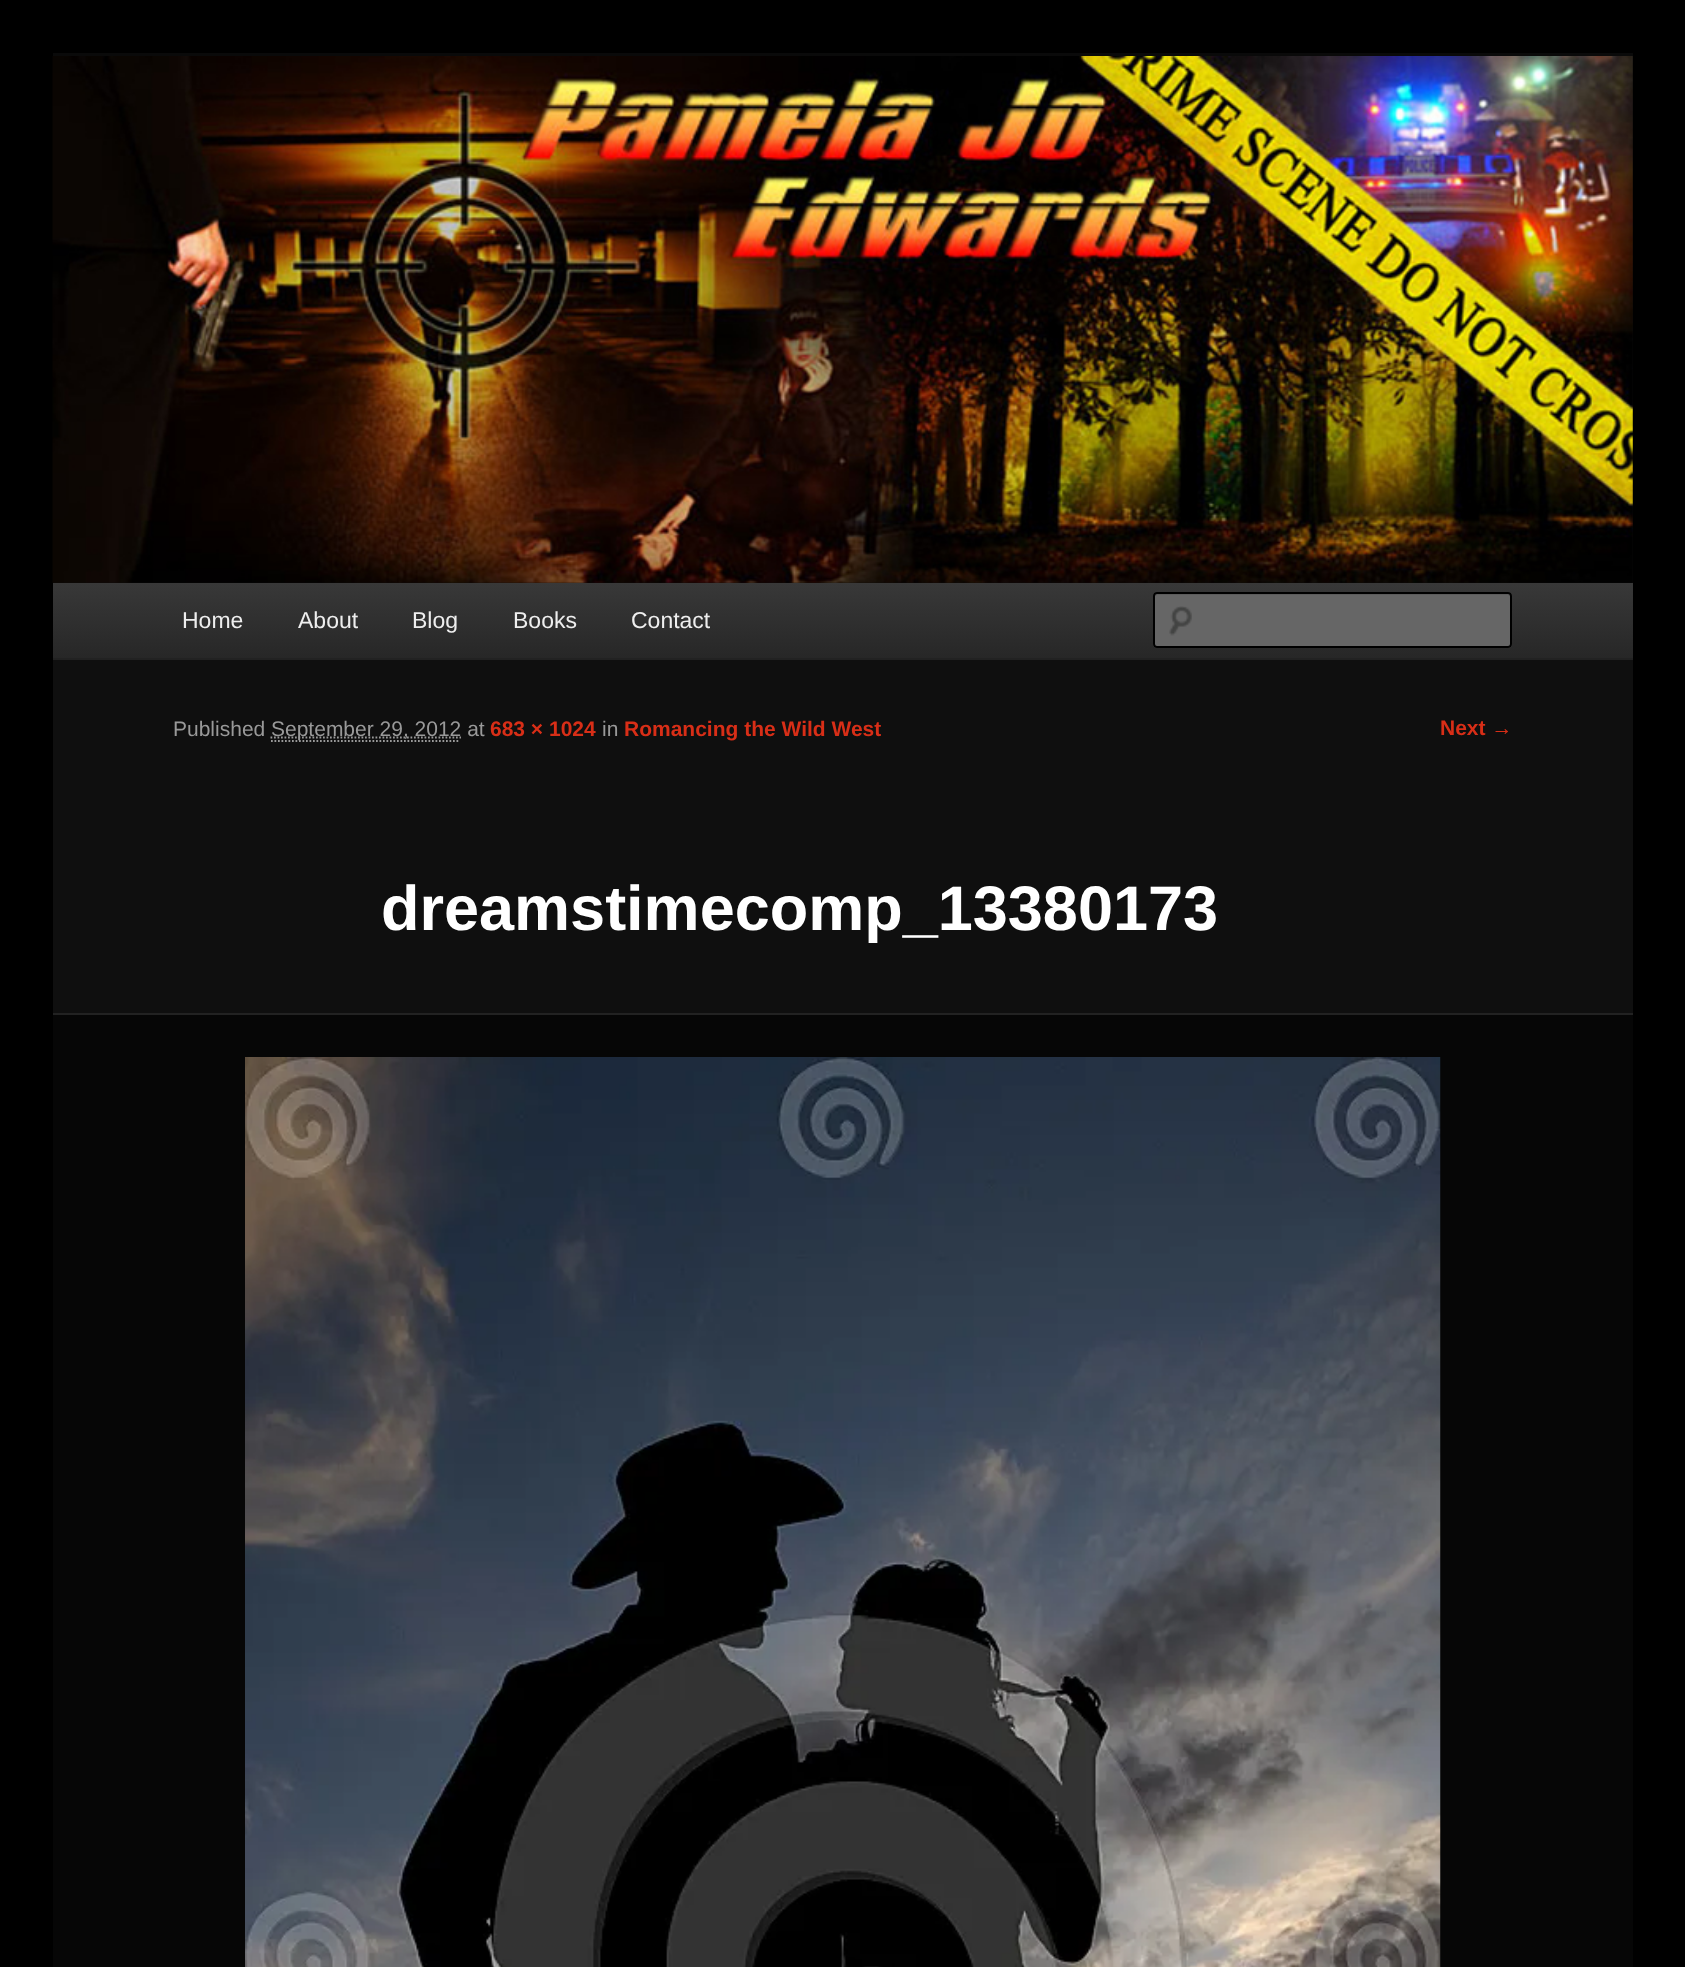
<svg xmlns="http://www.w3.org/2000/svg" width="1685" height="1967">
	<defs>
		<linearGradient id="g1" gradientUnits="userSpaceOnUse" x1="843" y1="583" x2="843" y2="658"><stop offset="0" stop-color="#383838" /><stop offset="1" stop-color="#272727" /></linearGradient>
	</defs>
	<rect width="100%" height="100%" fill="#000000" />
	<rect x="53" y="57" width="1580" height="956" fill="#0F0F0F" />
	<rect x="53" y="53" width="1580" height="4" fill="#0A0A0A" />
	<image x="52" y="56" width="1581" height="527" href="assets/img1.png" />
	<rect x="53" y="583" width="1580" height="75" fill="url(#g1)" />
	<rect x="53" y="658" width="1580" height="2" fill="#222222" />
	<g font-family="Liberation Sans" font-size="23" fill="#EEEEEE">
		<text x="182" y="628">Home</text>
		<text x="298" y="628">About</text>
		<text x="412" y="628">Blog</text>
		<text x="513" y="628">Books</text>
		<text x="631" y="628">Contact</text>
	</g>
	<rect x="1153" y="592" width="359" height="56" rx="4" fill="#666666" />
	<image x="1169" y="606" width="23" height="30" href="assets/img2.png" />
	<path d="M1157 595H1508C1509 595 1510 596 1510 597V595C1510 594 1509 593 1508 593H1157C1156 593 1155 594 1155 595V597C1155 596 1156 595 1157 595Z" fill="#5C5C5C" />
	<rect x="1154" y="593" width="357" height="54" rx="3" fill="none" stroke="#000000" stroke-width="2" />
	<text x="173" y="736" font-family="Liberation Sans" font-size="21" fill="#999999">Published</text>
	<path d="M271 741H460" fill="none" stroke="#999999" stroke-width="1.8" stroke-dasharray="1.75 1.75" />
	<path d="M270.5 737.5H461" fill="none" stroke="#999999" stroke-width="1.8" stroke-dasharray="1.75 1.75" />
	<text x="271" y="736" font-family="Liberation Sans" font-size="21" fill="#999999">September 29, 2012 at</text>
	<text x="490" y="736" font-family="Liberation Sans" font-size="21" font-weight="700" fill="#D82E17">683 × 1024</text>
	<text x="602" y="736" font-family="Liberation Sans" font-size="21" fill="#999999">in</text>
	<text x="624" y="736" font-family="Liberation Sans" font-size="21" font-weight="700" fill="#D82E17">Romancing the Wild West</text>
	<text x="381" y="930" font-family="Liberation Sans" font-size="63" font-weight="700" fill="#FFFFFF">dreamstimecomp_13380173</text>
	<rect x="53" y="1015" width="1580" height="952" fill="#060606" />
	<rect x="53" y="1013" width="1580" height="2" fill="#222222" />
	<image x="245" y="1057" width="1196" height="910" href="assets/img3.png" />
	<text x="1440" y="735" font-family="Liberation Sans" font-size="21" font-weight="700" fill="#D82E17">Next →</text>
</svg>
